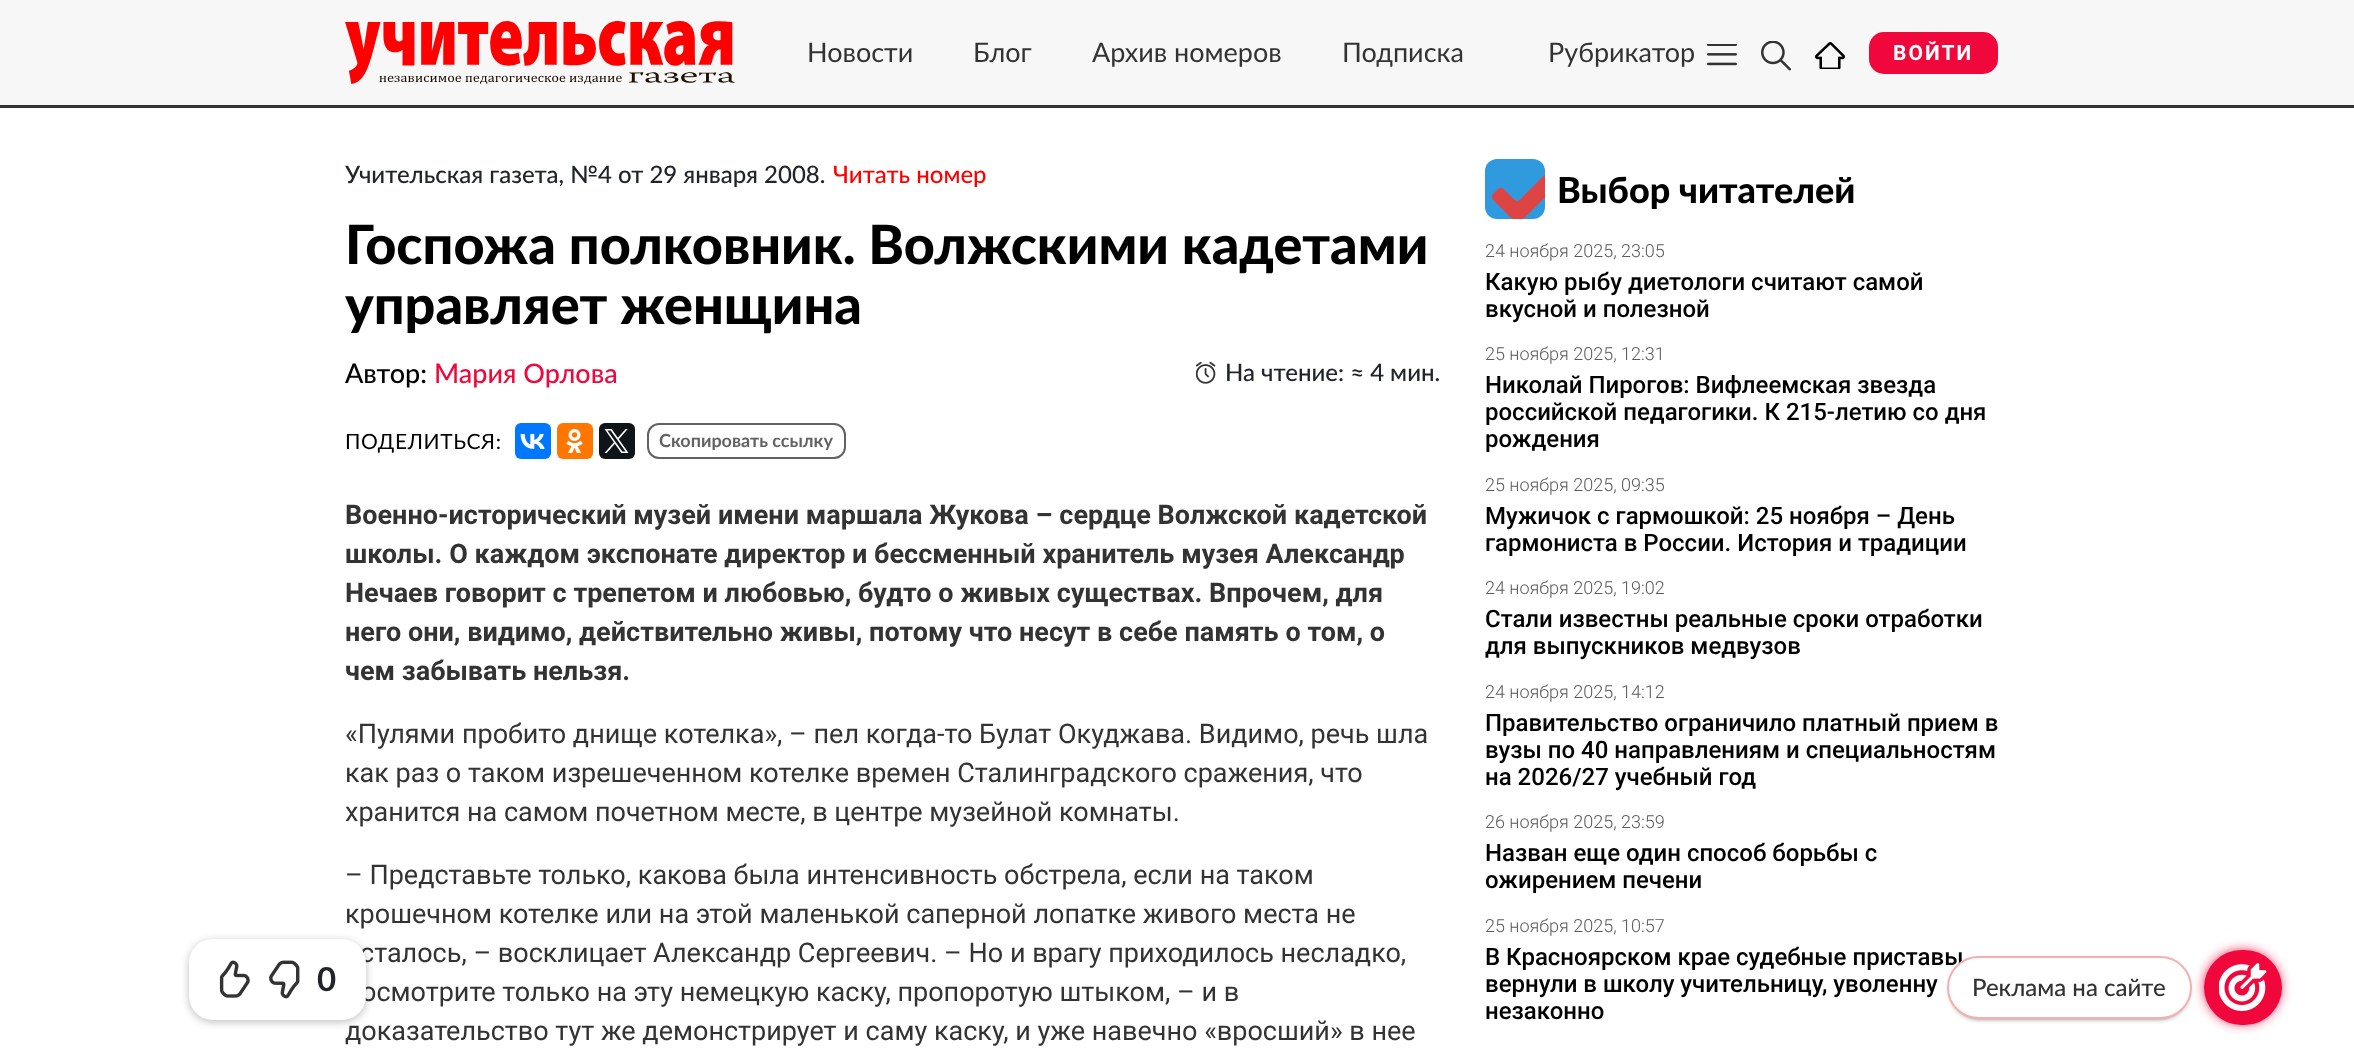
<svg xmlns="http://www.w3.org/2000/svg" width="2354" height="1061">
	<rect width="100%" height="100%" fill="#FFFFFF" />
	<rect x="0" y="0" width="2354" height="105" fill="#F7F7F7" />
	<rect x="0" y="105" width="2354" height="3" fill="#333333" />
	<image x="345" y="21" width="390" height="63" href="assets/img1.png" />
	<g font-family="Lato" font-size="27" fill="#333333">
		<text x="807" y="62">Новости</text>
		<text x="973" y="62">Блог</text>
		<text x="1092" y="62">Архив номеров</text>
		<text x="1342" y="62">Подписка</text>
		<text x="1548" y="62">Рубрикатор</text>
	</g>
	<image x="1707" y="44" width="30" height="22" href="assets/img2.png" />
	<image x="1761" y="41" width="30" height="30" href="assets/img3.png" />
	<image x="1815" y="42" width="30" height="27" href="assets/img4.png" />
	<rect x="1869" y="32" width="129" height="42" rx="15" fill="#F0073B" />
	<text x="1893" y="60" font-family="Roboto" font-size="21" font-weight="700" letter-spacing="2" fill="#FFFFFF">ВОЙТИ</text>
	<rect x="189" y="941" width="177" height="81" rx="24" fill="#000000" fill-opacity="0.25" filter="blur(4px)" />
	<g font-family="Roboto" font-size="27" fill="#333333">
		<text x="360" y="962">сталось, – восклицает Александр Сергеевич. – Но и врагу приходилось несладко,</text>
		<text x="361" y="1001">осмотрите только на эту немецкую каску, пропоротую штыком, – и в</text>
	</g>
	<rect x="189" y="939" width="177" height="81" rx="24" fill="#FFFFFF" />
	<image x="219" y="960" width="31" height="38" href="assets/img5.png" />
	<image x="269" y="960" width="31" height="39" href="assets/img6.png" />
	<text x="317" y="991" font-family="Lato" font-size="33" font-weight="700" fill="#212529">0</text>
	<text x="345" y="183" font-family="Lato" font-size="24" font-weight="500" fill="#212529">Учительская газета, №4 от 29 января 2008.</text>
	<text x="833" y="183" font-family="Lato" font-size="24" font-weight="500" fill="#FF0000">Читать номер</text>
	<g font-family="Lato" font-size="54" font-weight="800" fill="#000000">
		<text x="345" y="264">Госпожа полковник. Волжскими кадетами</text>
		<text x="345" y="324">управляет женщина</text>
	</g>
	<text x="345" y="383" font-family="Lato" font-size="27" font-weight="500" fill="#000000">Автор:</text>
	<text x="434" y="383" font-family="Lato" font-size="27" font-weight="500" fill="#F0073B">Мария Орлова</text>
	<image x="1196" y="362" width="20" height="22" href="assets/img7.png" />
	<text x="1225" y="381" font-family="Lato" font-size="24" font-weight="500" fill="#212529">На чтение: ≈ 4 мин.</text>
	<text x="345" y="449" font-family="Lato" font-size="21" letter-spacing="0.6" fill="#000000">ПОДЕЛИТЬСЯ:</text>
	<rect x="515" y="423" width="36" height="36" rx="6" fill="#0077FF" />
	<image x="520" y="433" width="25" height="16" href="assets/img8.png" />
	<rect x="557" y="423" width="36" height="36" rx="6" fill="#FF7700" />
	<image x="566" y="429" width="17" height="24" href="assets/img9.png" />
	<rect x="599" y="423" width="36" height="36" rx="6" fill="#0F1419" />
	<image x="604" y="429" width="25" height="24" href="assets/img10.png" />
	<rect x="648" y="424" width="197" height="34" rx="11" fill="none" stroke="#626262" stroke-width="2" />
	<text x="659" y="447" font-family="Lato" font-size="18" font-weight="700" fill="#626262">Скопировать ссылку</text>
	<g font-family="Roboto" font-size="27" font-weight="700" fill="#333333">
		<text x="345" y="524">Военно-исторический музей имени маршала Жукова – сердце Волжской кадетской</text>
		<text x="345" y="563">школы. О каждом экспонате директор и бессменный хранитель музея Александр</text>
		<text x="345" y="602">Нечаев говорит с трепетом и любовью, будто о живых существах. Впрочем, для</text>
		<text x="345" y="641">него они, видимо, действительно живы, потому что несут в себе память о том, о</text>
		<text x="345" y="680">чем забывать нельзя.</text>
	</g>
	<g font-family="Roboto" font-size="27" fill="#333333">
		<text x="345" y="743">«Пулями пробито днище котелка», – пел когда-то Булат Окуджава. Видимо, речь шла</text>
		<text x="345" y="782">как раз о таком изрешеченном котелке времен Сталинградского сражения, что</text>
		<text x="345" y="821">хранится на самом почетном месте, в центре музейной комнаты.</text>
		<text x="345" y="884">– Представьте только, какова была интенсивность обстрела, если на таком</text>
		<text x="345" y="923">крошечном котелке или на этой маленькой саперной лопатке живого места не</text>
		<text x="345" y="1040">доказательство тут же демонстрирует и саму каску, и уже навечно «вросший» в нее</text>
	</g>
	<image x="1485" y="159" width="60" height="60" href="assets/img11.png" />
	<text x="1557" y="203" font-family="Lato" font-size="36" font-weight="800" fill="#000000">Выбор читателей</text>
	<text x="1485" y="257" font-family="Roboto" font-size="18" font-weight="300" fill="#5A5A5A">24 ноября 2025, 23:05</text>
	<g font-family="Roboto" font-size="24" font-weight="500" fill="#000000">
		<text x="1485" y="290">Какую рыбу диетологи считают самой</text>
		<text x="1485" y="317">вкусной и полезной</text>
	</g>
	<text x="1485" y="360" font-family="Roboto" font-size="18" font-weight="300" fill="#5A5A5A">25 ноября 2025, 12:31</text>
	<g font-family="Roboto" font-size="24" font-weight="500" fill="#000000">
		<text x="1485" y="393">Николай Пирогов: Вифлеемская звезда</text>
		<text x="1485" y="420">российской педагогики. К 215-летию со дня</text>
		<text x="1485" y="447">рождения</text>
	</g>
	<text x="1485" y="491" font-family="Roboto" font-size="18" font-weight="300" fill="#5A5A5A">25 ноября 2025, 09:35</text>
	<g font-family="Roboto" font-size="24" font-weight="500" fill="#000000">
		<text x="1485" y="524">Мужичок с гармошкой: 25 ноября – День</text>
		<text x="1485" y="551">гармониста в России. История и традиции</text>
	</g>
	<text x="1485" y="594" font-family="Roboto" font-size="18" font-weight="300" fill="#5A5A5A">24 ноября 2025, 19:02</text>
	<g font-family="Roboto" font-size="24" font-weight="500" fill="#000000">
		<text x="1485" y="627">Стали известны реальные сроки отработки</text>
		<text x="1485" y="654">для выпускников медвузов</text>
	</g>
	<text x="1485" y="698" font-family="Roboto" font-size="18" font-weight="300" fill="#5A5A5A">24 ноября 2025, 14:12</text>
	<g font-family="Roboto" font-size="24" font-weight="500" fill="#000000">
		<text x="1485" y="731">Правительство ограничило платный прием в</text>
		<text x="1485" y="758">вузы по 40 направлениям и специальностям</text>
		<text x="1485" y="785">на 2026/27 учебный год</text>
	</g>
	<text x="1485" y="828" font-family="Roboto" font-size="18" font-weight="300" fill="#5A5A5A">26 ноября 2025, 23:59</text>
	<g font-family="Roboto" font-size="24" font-weight="500" fill="#000000">
		<text x="1485" y="861">Назван еще один способ борьбы с</text>
		<text x="1485" y="888">ожирением печени</text>
	</g>
	<text x="1485" y="932" font-family="Roboto" font-size="18" font-weight="300" fill="#5A5A5A">25 ноября 2025, 10:57</text>
	<g font-family="Roboto" font-size="24" font-weight="500" fill="#000000">
		<text x="1485" y="965">В Красноярском крае судебные приставы</text>
		<text x="1485" y="992">вернули в школу учительницу, уволенну</text>
		<text x="1485" y="1019">незаконно</text>
	</g>
	<rect x="2205" y="951" width="75" height="72" rx="36" fill="#F0073B" filter="blur(6px)" />
	<rect x="2204" y="950" width="78" height="75" rx="37.5" fill="#F0073B" />
	<rect x="1952" y="963" width="235" height="54" rx="27" fill="#000000" filter="blur(3px)" />
	<rect x="1948" y="957" width="243" height="61" rx="30.5" fill="#FFFFFF" stroke="#F5AFAF" stroke-width="2" />
	<text x="1972" y="996" font-family="Lato" font-size="24" font-weight="500" fill="#333333">Реклама на сайте</text>
	<image x="2219" y="963" width="48" height="48" href="assets/img12.png" />
</svg>
